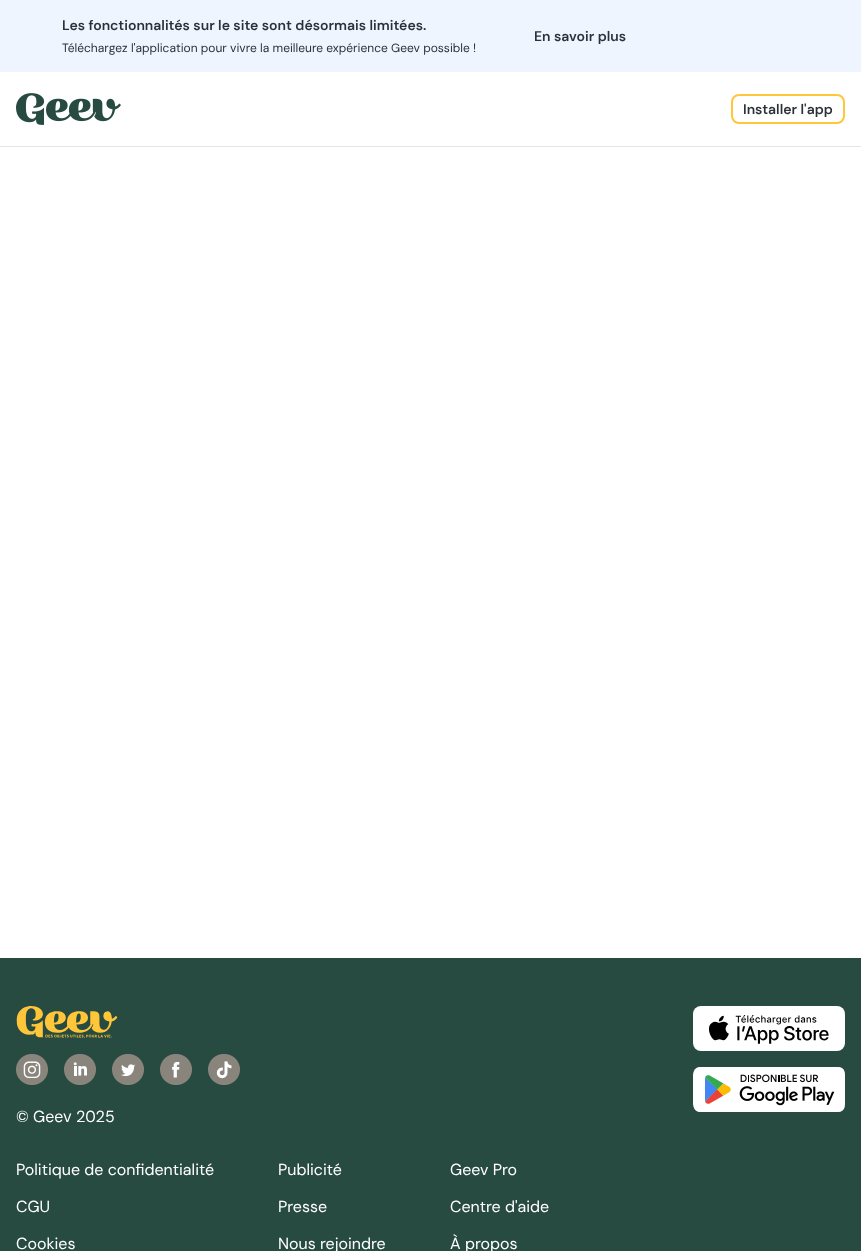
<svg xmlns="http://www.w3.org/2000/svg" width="861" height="1251">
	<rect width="100%" height="100%" fill="#FFFFFF" />
	<rect x="0" y="146" width="861" height="1" fill="#E4E4E4" />
	<rect x="0" y="0" width="861" height="72" fill="#EFF5FF" />
	<text x="62" y="30" font-family="DM Sans" font-size="14" font-weight="600" fill="#283237">Les fonctionnalités sur le site sont désormais limitées.</text>
	<text x="62" y="52" font-family="'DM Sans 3'" font-size="12" fill="#283237">Téléchargez l'application pour vivre la meilleure expérience Geev possible !</text>
	<text x="534" y="41" font-family="DM Sans" font-size="14" font-weight="600" fill="#283237">En savoir plus</text>
	<image x="16" y="93" width="105" height="32" href="assets/img1.png" />
	<rect x="732" y="95" width="112" height="28" rx="7" fill="none" stroke="#FFC639" stroke-width="2" />
	<text x="743" y="114" font-family="DM Sans" font-size="14" font-weight="600" fill="#283237">Installer l'app</text>
	<rect x="0" y="958" width="861" height="293" fill="#284B41" />
	<rect x="693" y="1006" width="152" height="45" rx="8" fill="#FFFFFF" />
	<image x="708" y="1015" width="121" height="29" href="assets/img2.png" />
	<rect x="693" y="1067" width="152" height="45" rx="8" fill="#FFFFFF" />
	<image x="694" y="1067" width="151" height="45" href="assets/img3.png" />
	<image x="16" y="1006" width="102" height="32" href="assets/img4.png" />
	<image x="16" y="1054" width="32" height="31" href="assets/img5.png" />
	<image x="64" y="1054" width="32" height="31" href="assets/img6.png" />
	<image x="112" y="1054" width="32" height="31" href="assets/img7.png" />
	<image x="160" y="1054" width="32" height="31" href="assets/img8.png" />
	<image x="208" y="1054" width="32" height="31" href="assets/img9.png" />
	<text x="16" y="1122" font-family="DM Sans" font-size="16" fill="#FFFFFF">© Geev 2025</text>
	<g font-family="'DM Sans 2'" font-size="16" fill="#FFFFFF">
		<text x="16" y="1175">Politique de confidentialité</text>
		<text x="16" y="1212">CGU</text>
		<text x="16" y="1249">Cookies</text>
		<text x="278" y="1175">Publicité</text>
		<text x="278" y="1212">Presse</text>
		<text x="278" y="1249">Nous rejoindre</text>
		<text x="450" y="1175">Geev Pro</text>
		<text x="450" y="1212">Centre d'aide</text>
		<text x="450" y="1249">À propos</text>
	</g>
</svg>
